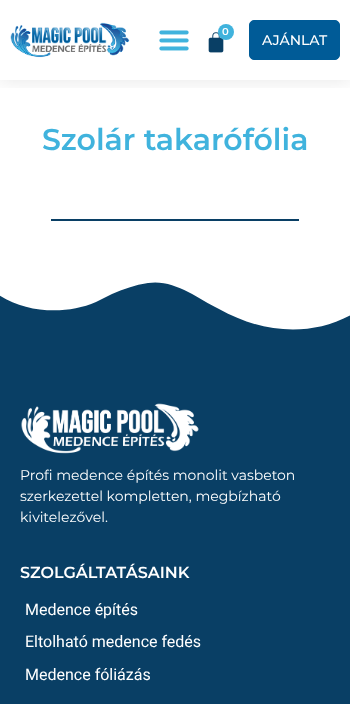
<svg xmlns="http://www.w3.org/2000/svg" width="350" height="704">
	<defs>
		<clipPath id="clip1"><rect x="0" y="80" width="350" height="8" /></clipPath>
	</defs>
	<rect width="100%" height="100%" fill="#FFFFFF" />
	<g clip-path="url(#clip1)">
		<rect x="0" y="0" width="350" height="80" fill="#000000" fill-opacity="0.1" filter="blur(10px)" />
	</g>
	<image x="10" y="22" width="120" height="36" href="assets/img1.png" />
	<image x="159" y="30" width="30" height="21" href="assets/img2.png" />
	<image x="208" y="32" width="16" height="21" href="assets/img3.png" />
	<circle cx="226" cy="32" r="8" fill="#40B3DD" />
	<text x="222" y="35" font-family="Montserrat" font-size="10" font-weight="600" fill="#FFFFFF">0</text>
	<rect x="249.5" y="20.5" width="90" height="39" rx="4.5" fill="#005B97" stroke="#005B97" />
	<text x="262" y="45" font-family="Montserrat" font-size="14" font-weight="500" fill="#FFFFFF">AJÁNLAT</text>
	<text x="42" y="150" font-family="Montserrat" font-size="30" font-weight="600" fill="#40B3DD">Szolár takarófólia</text>
	<rect x="51" y="219" width="248" height="2" fill="#093F65" />
	<rect x="0" y="282" width="350" height="422" fill="#093F65" />
	<path d="M148 283C174 279 197 298 219 309C260 332 308 338 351 315V280H-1V295C27 313 66 315 96 302L112 294C123 289 135 285 148 283Z" fill="#FFFFFF" />
	<image x="21" y="403" width="178" height="51" href="assets/img4.png" />
	<g font-family="Montserrat" font-size="14" fill="#FFFFFF">
		<text x="20" y="480">Profi medence építés monolit vasbeton</text>
		<text x="20" y="501">szerkezettel kompletten, megbízható</text>
		<text x="20" y="522">kivitelezővel.</text>
	</g>
	<text x="20" y="578" font-family="Montserrat" font-size="16" font-weight="600" fill="#FFFFFF">SZOLGÁLTATÁSAINK</text>
	<g font-family="Roboto" font-size="16" fill="#FFFFFF">
		<text x="25" y="615">Medence építés</text>
		<text x="25" y="647">Eltolható medence fedés</text>
		<text x="25" y="680">Medence fóliázás</text>
	</g>
</svg>
